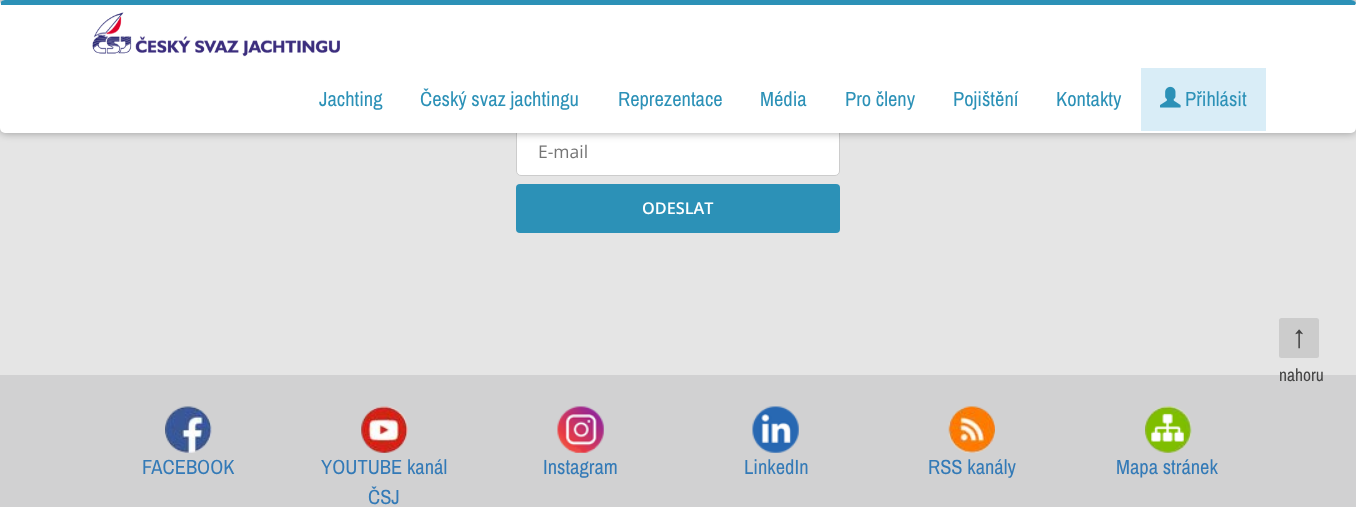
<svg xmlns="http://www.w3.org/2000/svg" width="1356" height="507">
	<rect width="100%" height="100%" fill="#E5E5E5" />
	<rect x="516.5" y="126.5" width="323" height="49" rx="4.5" fill="#FFFFFF" stroke="#CCCCCC" />
	<rect x="0" y="0" width="1356" height="133" rx="5" fill="#000000" fill-opacity="0.35" filter="blur(4px)" />
	<rect x="0" y="0" width="1356" height="133" rx="5" fill="#FFFFFF" />
	<path d="M5 0C3 0 1 1 1 2V5H1355L1356 3C1355 1 1353 0 1351 0Z" fill="#2C91B7" />
	<image x="92" y="12" width="248" height="45" href="assets/img1.png" />
	<g font-family="Archivo Narrow" font-size="20.5" fill="#2C91B7">
		<text x="319" y="106">Jachting</text>
		<text x="420" y="106">Český svaz jachtingu</text>
		<text x="618" y="106">Reprezentace</text>
		<text x="760" y="106">Média</text>
		<text x="845" y="106">Pro členy</text>
		<text x="953" y="106">Pojištění</text>
		<text x="1056" y="106">Kontakty</text>
	</g>
	<rect x="1141" y="68" width="125" height="63" fill="#D9EDF7" />
	<image x="1160" y="86" width="21" height="22" href="assets/img2.png" />
	<text x="1185" y="106" font-family="Archivo Narrow" font-size="20.5" fill="#2C91B7">Přihlásit</text>
	<text x="538" y="158" font-family="Open Sans" font-size="17.5" fill="#757575">E-mail</text>
	<rect x="516" y="184" width="324" height="49" rx="4" fill="#2C91B7" />
	<text x="642" y="214" font-family="Open Sans" font-size="16.25" font-weight="600" fill="#FFFFFF">ODESLAT</text>
	<rect x="0" y="375" width="1356" height="132" fill="#D1D1D2" />
	<image x="165" y="406" width="47" height="47" href="assets/img3.png" />
	<text x="142" y="474" font-family="Archivo Narrow" font-size="20.5" fill="#337AB7">FACEBOOK</text>
	<image x="361" y="406" width="47" height="47" href="assets/img4.png" />
	<g font-family="Archivo Narrow" font-size="20.5" fill="#337AB7">
		<text x="321" y="474">YOUTUBE kanál</text>
		<text x="368" y="504">ČSJ</text>
	</g>
	<image x="557" y="406" width="47" height="47" href="assets/img5.png" />
	<text x="543" y="474" font-family="Archivo Narrow" font-size="20.5" fill="#337AB7">Instagram</text>
	<image x="752" y="406" width="47" height="47" href="assets/img6.png" />
	<text x="744" y="474" font-family="Archivo Narrow" font-size="20.5" fill="#337AB7">LinkedIn</text>
	<image x="948" y="406" width="47" height="47" href="assets/img7.png" />
	<text x="928" y="474" font-family="Archivo Narrow" font-size="20.5" fill="#337AB7">RSS kanály</text>
	<image x="1145" y="406" width="47" height="47" href="assets/img8.png" />
	<text x="1116" y="474" font-family="Archivo Narrow" font-size="20.5" fill="#337AB7">Mapa stránek</text>
	<rect x="1279" y="318" width="40" height="40" rx="2.5" fill="#CCCCCC" />
	<text x="1294" y="344" font-family="Archivo Narrow" font-size="20.5" fill="#444444">↑</text>
	<text x="1279" y="381" font-family="Archivo Narrow" font-size="17.5" fill="#444444">nahoru</text>
</svg>
